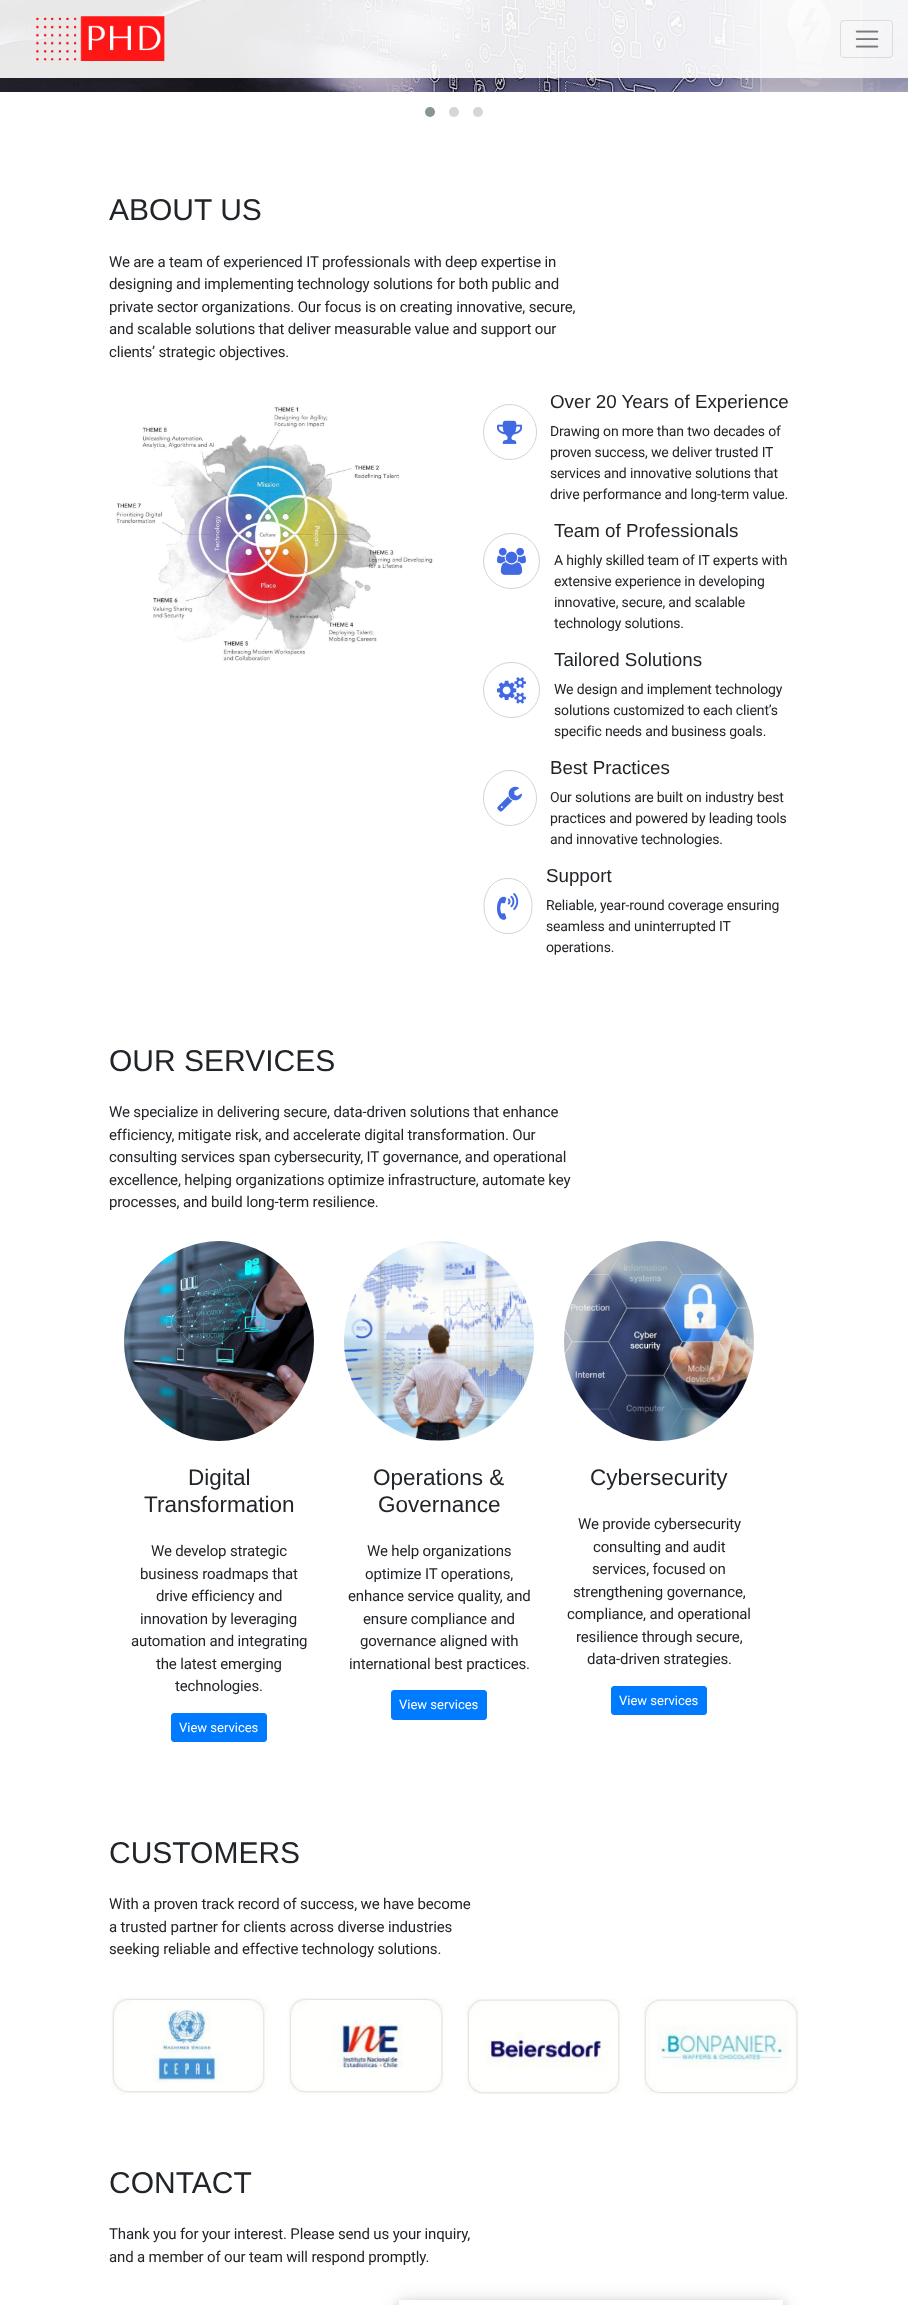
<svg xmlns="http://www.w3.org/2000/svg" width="908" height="2305">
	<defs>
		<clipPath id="clip1"><path d="M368 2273H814V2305H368ZM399 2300H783V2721H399Z" clip-rule="evenodd" /></clipPath>
		<clipPath id="clip2"><path d="M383 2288H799V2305H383ZM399 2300H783V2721H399Z" clip-rule="evenodd" /></clipPath>
	</defs>
	<rect width="100%" height="100%" fill="#FFFFFF" />
	<image x="0" y="0" width="908" height="92" href="assets/img1.png" />
	<circle cx="430" cy="112" r="5" fill="#869791" />
	<circle cx="454" cy="112" r="5" fill="#D6D6D6" />
	<circle cx="478" cy="112" r="5" fill="#D6D6D6" />
	<rect x="0" y="0" width="908" height="78" fill="#FFFFFF" fill-opacity="0.9" />
	<image x="36" y="16" width="129" height="45" href="assets/img2.png" />
	<rect x="840.5" y="20.5" width="52" height="37" rx="3.5" fill="none" stroke="#000000" stroke-opacity="0.1" />
	<image x="855" y="30" width="24" height="18" href="assets/img3.png" />
	<text x="109" y="220" font-family="Liberation Sans" font-size="30" fill="#212529">ABOUT US</text>
	<g font-family="Roboto" font-size="15" letter-spacing="-0.15" fill="#212529">
		<text x="109" y="267">We are a team of experienced IT professionals with deep expertise in</text>
		<text x="109" y="289">designing and implementing technology solutions for both public and</text>
		<text x="109" y="312">private sector organizations. Our focus is on creating innovative, secure,</text>
		<text x="109" y="334">and scalable solutions that deliver measurable value and support our</text>
		<text x="109" y="357">clients’ strategic objectives.</text>
	</g>
	<image x="115" y="406" width="319" height="255" href="assets/img4.png" />
	<path d="M510 404.5C524.5 404.5 536.5 417 536.5 432C536.5 447 524.5 459.5 510 459.5C495.5 459.5 483.5 447 483.5 432C483.5 417 495.5 404.5 510 404.5Z" fill="none" stroke="#D3D3D3" />
	<image x="497" y="420" width="26" height="24" href="assets/img5.png" />
	<text x="550" y="408" font-family="Liberation Sans" font-size="18.75" fill="#212529">Over 20 Years of Experience</text>
	<g font-family="Roboto" font-size="14" letter-spacing="-0.15" fill="#212529">
		<text x="550" y="436">Drawing on more than two decades of</text>
		<text x="550" y="457">proven success, we deliver trusted IT</text>
		<text x="550" y="478">services and innovative solutions that</text>
		<text x="550" y="499">drive performance and long-term value.</text>
	</g>
	<rect x="483.5" y="533.5" width="56" height="55" rx="27.5" fill="none" stroke="#D3D3D3" />
	<image x="497" y="547" width="29" height="28" href="assets/img6.png" />
	<text x="554" y="537" font-family="Liberation Sans" font-size="18.75" fill="#212529">Team of Professionals</text>
	<g font-family="Roboto" font-size="14" letter-spacing="-0.15" fill="#212529">
		<text x="554" y="565">A highly skilled team of IT experts with</text>
		<text x="554" y="586">extensive experience in developing</text>
		<text x="554" y="607">innovative, secure, and scalable</text>
		<text x="554" y="628">technology solutions.</text>
	</g>
	<rect x="483.5" y="662.5" width="56" height="55" rx="27.5" fill="none" stroke="#D3D3D3" />
	<image x="497" y="677" width="29" height="27" href="assets/img7.png" />
	<text x="554" y="666" font-family="Liberation Sans" font-size="18.75" fill="#212529">Tailored Solutions</text>
	<g font-family="Roboto" font-size="14" letter-spacing="-0.15" fill="#212529">
		<text x="554" y="694">We design and implement technology</text>
		<text x="554" y="715">solutions customized to each client’s</text>
		<text x="554" y="736">specific needs and business goals.</text>
	</g>
	<path d="M510 770.5C524.5 770.5 536.5 783 536.5 798C536.5 813 524.5 825.5 510 825.5C495.5 825.5 483.5 813 483.5 798C483.5 783 495.5 770.5 510 770.5Z" fill="none" stroke="#D3D3D3" />
	<image x="497" y="786" width="25" height="26" href="assets/img8.png" />
	<text x="550" y="774" font-family="Liberation Sans" font-size="18.75" fill="#212529">Best Practices</text>
	<g font-family="Roboto" font-size="14" letter-spacing="-0.15" fill="#212529">
		<text x="550" y="802">Our solutions are built on industry best</text>
		<text x="550" y="823">practices and powered by leading tools</text>
		<text x="550" y="844">and innovative technologies.</text>
	</g>
	<path d="M508 878.5C540 878.5 540 933.5 508 933.5C476 933.5 476 878.5 508 878.5Z" fill="none" stroke="#D3D3D3" />
	<image x="497" y="893" width="22" height="27" href="assets/img9.png" />
	<text x="546" y="882" font-family="Liberation Sans" font-size="18.75" fill="#212529">Support</text>
	<g font-family="Roboto" font-size="14" letter-spacing="-0.15" fill="#212529">
		<text x="546" y="910">Reliable, year-round coverage ensuring</text>
		<text x="546" y="931">seamless and uninterrupted IT</text>
		<text x="546" y="952">operations.</text>
	</g>
	<text x="109" y="1071" font-family="Liberation Sans" font-size="30" fill="#212529">OUR SERVICES</text>
	<g font-family="Roboto" font-size="15" letter-spacing="-0.15" fill="#212529">
		<text x="109" y="1117">We specialize in delivering secure, data-driven solutions that enhance</text>
		<text x="109" y="1140">efficiency, mitigate risk, and accelerate digital transformation. Our</text>
		<text x="109" y="1162">consulting services span cybersecurity, IT governance, and operational</text>
		<text x="109" y="1185">excellence, helping organizations optimize infrastructure, automate key</text>
		<text x="109" y="1207">processes, and build long-term resilience.</text>
	</g>
	<image x="124" y="1241" width="190" height="200" href="assets/img10.png" />
	<g font-family="Liberation Sans" font-size="22.5" fill="#212529">
		<text x="188" y="1485">Digital</text>
		<text x="144" y="1512">Transformation</text>
	</g>
	<g font-family="Roboto" font-size="15" letter-spacing="-0.15" fill="#212529">
		<text x="151" y="1556">We develop strategic</text>
		<text x="140" y="1579">business roadmaps that</text>
		<text x="156" y="1601">drive efficiency and</text>
		<text x="140" y="1624">innovation by leveraging</text>
		<text x="131" y="1646">automation and integrating</text>
		<text x="156" y="1669">the latest emerging</text>
		<text x="175" y="1691">technologies.</text>
	</g>
	<rect x="171.5" y="1713.5" width="95" height="28" rx="2.5" fill="#007BFF" stroke="#007BFF" />
	<text x="179" y="1732" font-family="Roboto" font-size="13" fill="#FFFFFF">View services</text>
	<image x="344" y="1241" width="190" height="200" href="assets/img11.png" />
	<g font-family="Liberation Sans" font-size="22.5" fill="#212529">
		<text x="373" y="1485">Operations &amp;</text>
		<text x="378" y="1512">Governance</text>
	</g>
	<g font-family="Roboto" font-size="15" letter-spacing="-0.15" fill="#212529">
		<text x="367" y="1556">We help organizations</text>
		<text x="365" y="1579">optimize IT operations,</text>
		<text x="348" y="1601">enhance service quality, and</text>
		<text x="363" y="1624">ensure compliance and</text>
		<text x="360" y="1646">governance aligned with</text>
		<text x="349" y="1669">international best practices.</text>
	</g>
	<rect x="391.5" y="1690.5" width="95" height="29" rx="2.5" fill="#007BFF" stroke="#007BFF" />
	<text x="399" y="1709" font-family="Roboto" font-size="13" fill="#FFFFFF">View services</text>
	<image x="564" y="1241" width="190" height="200" href="assets/img12.png" />
	<text x="590" y="1485" font-family="Liberation Sans" font-size="22.5" fill="#212529">Cybersecurity</text>
	<g font-family="Roboto" font-size="15" letter-spacing="-0.15" fill="#212529">
		<text x="578" y="1529">We provide cybersecurity</text>
		<text x="593" y="1552">consulting and audit</text>
		<text x="592" y="1574">services, focused on</text>
		<text x="573" y="1597">strengthening governance,</text>
		<text x="567" y="1619">compliance, and operational</text>
		<text x="576" y="1642">resilience through secure,</text>
		<text x="587" y="1664">data-driven strategies.</text>
	</g>
	<rect x="611.5" y="1686.5" width="95" height="28" rx="2.5" fill="#007BFF" stroke="#007BFF" />
	<text x="619" y="1705" font-family="Roboto" font-size="13" fill="#FFFFFF">View services</text>
	<text x="109" y="1863" font-family="Liberation Sans" font-size="30" fill="#212529">CUSTOMERS</text>
	<g font-family="Roboto" font-size="15" letter-spacing="-0.15" fill="#212529">
		<text x="109" y="1909">With a proven track record of success, we have become</text>
		<text x="109" y="1932">a trusted partner for clients across diverse industries</text>
		<text x="109" y="1954">seeking reliable and effective technology solutions.</text>
	</g>
	<image x="110" y="1996" width="157" height="99" href="assets/img13.png" />
	<image x="287" y="1996" width="158" height="99" href="assets/img14.png" />
	<image x="465" y="1998" width="157" height="97" href="assets/img15.png" />
	<image x="643" y="1996" width="156" height="99" href="assets/img16.png" />
	<text x="109" y="2193" font-family="Liberation Sans" font-size="30" fill="#212529">CONTACT</text>
	<g font-family="Roboto" font-size="15" letter-spacing="-0.15" fill="#212529">
		<text x="109" y="2239">Thank you for your interest. Please send us your inquiry,</text>
		<text x="109" y="2262">and a member of our team will respond promptly.</text>
	</g>
	<g clip-path="url(#clip1)">
		<rect x="399" y="2304" width="384" height="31" fill="#000000" fill-opacity="0.19" filter="blur(10px)" />
	</g>
	<g clip-path="url(#clip2)">
		<rect x="399" y="2304" width="384" height="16" fill="#000000" fill-opacity="0.2" filter="blur(5px)" />
	</g>
</svg>
